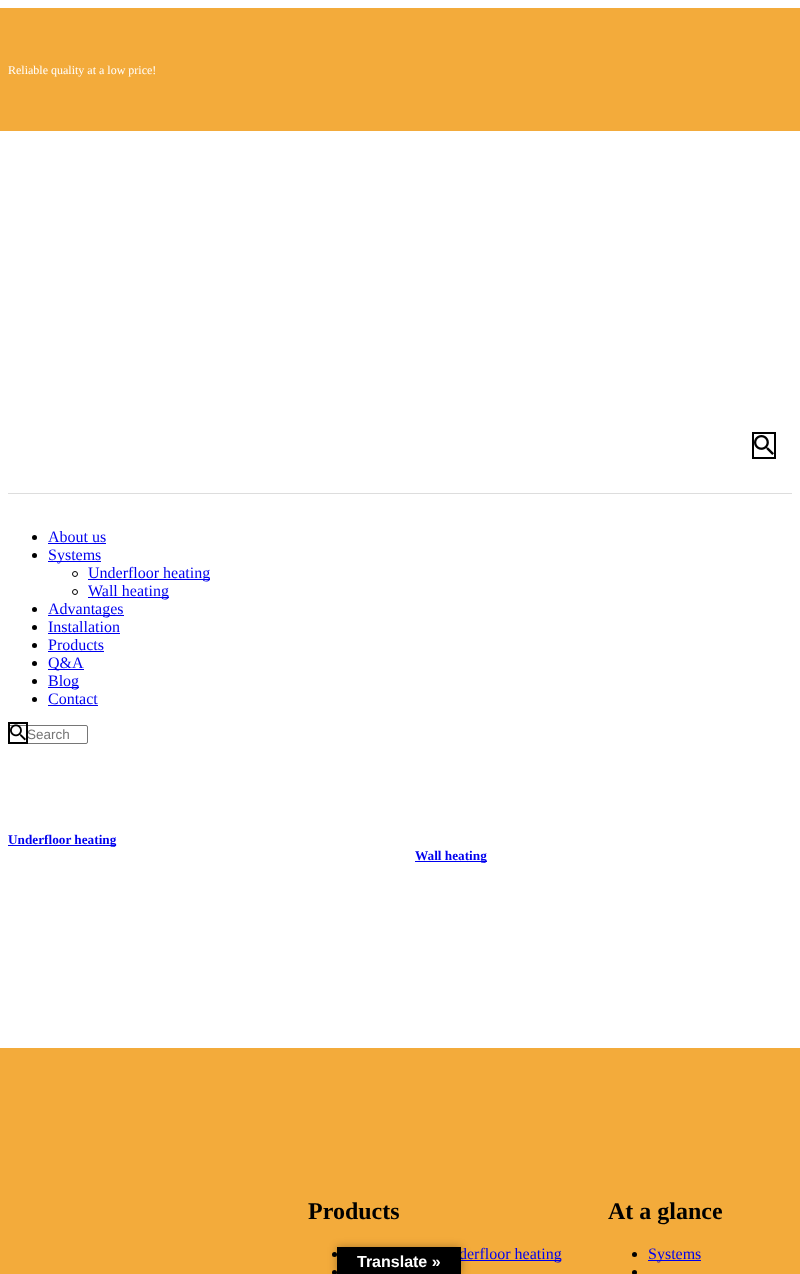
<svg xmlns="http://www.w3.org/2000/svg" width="800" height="1274">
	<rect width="100%" height="100%" fill="#FFFFFF" />
	<rect x="0" y="8" width="800" height="123" fill="#F3AB3B" />
	<text x="8" y="74" font-family="Liberation Serif" font-size="12" fill="#FFFFFF">Reliable quality at a low price!</text>
	<rect x="8" y="493" width="784" height="1" fill="#DDDDDD" />
	<rect x="753" y="433" width="22" height="25" fill="none" stroke="#000000" stroke-width="2" />
	<image x="754" y="435" width="20" height="20" href="assets/img1.png" />
	<circle cx="34.5" cy="537.5" r="2.5" fill="#000000" />
	<text x="48" y="542" font-family="Liberation Serif" font-size="16" fill="#0000EE">About us</text>
	<rect x="48" y="543" width="58" height="1" fill="#0000EE" />
	<circle cx="34.5" cy="555.5" r="2.5" fill="#000000" />
	<rect x="48" y="561" width="53" height="1" fill="#0000EE" />
	<text x="48" y="560" font-family="Liberation Serif" font-size="16" fill="#0000EE">Systems</text>
	<circle cx="75" cy="574" r="2.5" fill="none" stroke="#000000" />
	<rect x="88" y="579" width="122" height="1" fill="#0000EE" />
	<text x="88" y="578" font-family="Liberation Serif" font-size="16" fill="#0000EE">Underfloor heating</text>
	<circle cx="75" cy="592" r="2.5" fill="none" stroke="#000000" />
	<rect x="88" y="597" width="81" height="1" fill="#0000EE" />
	<text x="88" y="596" font-family="Liberation Serif" font-size="16" fill="#0000EE">Wall heating</text>
	<circle cx="34.5" cy="609.5" r="2.5" fill="#000000" />
	<rect x="48" y="615" width="76" height="1" fill="#0000EE" />
	<text x="48" y="614" font-family="Liberation Serif" font-size="16" fill="#0000EE">Advantages</text>
	<circle cx="34.5" cy="627.5" r="2.5" fill="#000000" />
	<text x="48" y="632" font-family="Liberation Serif" font-size="16" fill="#0000EE">Installation</text>
	<rect x="48" y="633" width="72" height="1" fill="#0000EE" />
	<circle cx="34.5" cy="645.5" r="2.5" fill="#000000" />
	<text x="48" y="650" font-family="Liberation Serif" font-size="16" fill="#0000EE">Products</text>
	<rect x="48" y="651" width="56" height="1" fill="#0000EE" />
	<circle cx="34.5" cy="663.5" r="2.5" fill="#000000" />
	<rect x="48" y="669" width="36" height="1" fill="#0000EE" />
	<text x="48" y="668" font-family="Liberation Serif" font-size="16" fill="#0000EE">Q&amp;A</text>
	<circle cx="34.5" cy="681.5" r="2.5" fill="#000000" />
	<rect x="48" y="687" width="31" height="1" fill="#0000EE" />
	<text x="48" y="686" font-family="Liberation Serif" font-size="16" fill="#0000EE">Blog</text>
	<circle cx="34.5" cy="699.5" r="2.5" fill="#000000" />
	<text x="48" y="704" font-family="Liberation Serif" font-size="16" fill="#0000EE">Contact</text>
	<rect x="48" y="705" width="50" height="1" fill="#0000EE" />
	<rect x="8.5" y="725.5" width="79" height="18" rx="1.5" fill="none" stroke="#767676" />
	<text x="27" y="739" font-family="Liberation Sans" font-size="13.5" fill="#757575">Search</text>
	<rect x="9" y="723" width="18" height="20" fill="none" stroke="#000000" stroke-width="2" />
	<image x="10" y="724" width="16" height="17" href="assets/img2.png" />
	<rect x="8" y="845" width="108" height="1" fill="#0000EE" />
	<text x="8" y="844" font-family="Liberation Serif" font-size="13.25" font-weight="700" fill="#0000EE">Underfloor heating</text>
	<rect x="415" y="861" width="72" height="1" fill="#0000EE" />
	<text x="415" y="860" font-family="Liberation Serif" font-size="13.25" font-weight="700" fill="#0000EE">Wall heating</text>
	<rect x="0" y="1048" width="800" height="226" fill="#F3AB3B" />
	<text x="308" y="1219" font-family="Liberation Serif" font-size="24" font-weight="700" fill="#000000">Products</text>
	<circle cx="334.5" cy="1254.5" r="2.5" fill="#000000" />
	<rect x="461" y="1260" width="100" height="1" fill="#0000EE" />
	<text x="459" y="1259" font-family="Liberation Serif" font-size="16" fill="#0000EE">derfloor heating</text>
	<circle cx="334.5" cy="1272.5" r="2.5" fill="#000000" />
	<text x="608" y="1219" font-family="Liberation Serif" font-size="24" font-weight="700" fill="#000000">At a glance</text>
	<circle cx="634.5" cy="1254.5" r="2.5" fill="#000000" />
	<rect x="648" y="1260" width="53" height="1" fill="#0000EE" />
	<text x="648" y="1259" font-family="Liberation Serif" font-size="16" fill="#0000EE">Systems</text>
	<circle cx="634.5" cy="1272.5" r="2.5" fill="#000000" />
	<rect x="337" y="1247" width="124" height="27" fill="#000000" fill-opacity="0.3" filter="blur(4.5px)" />
	<rect x="337" y="1247" width="124" height="27" fill="#000000" />
	<text x="357" y="1267" font-family="Liberation Sans" font-size="16" font-weight="700" fill="#FFFFFF">Translate »</text>
</svg>
